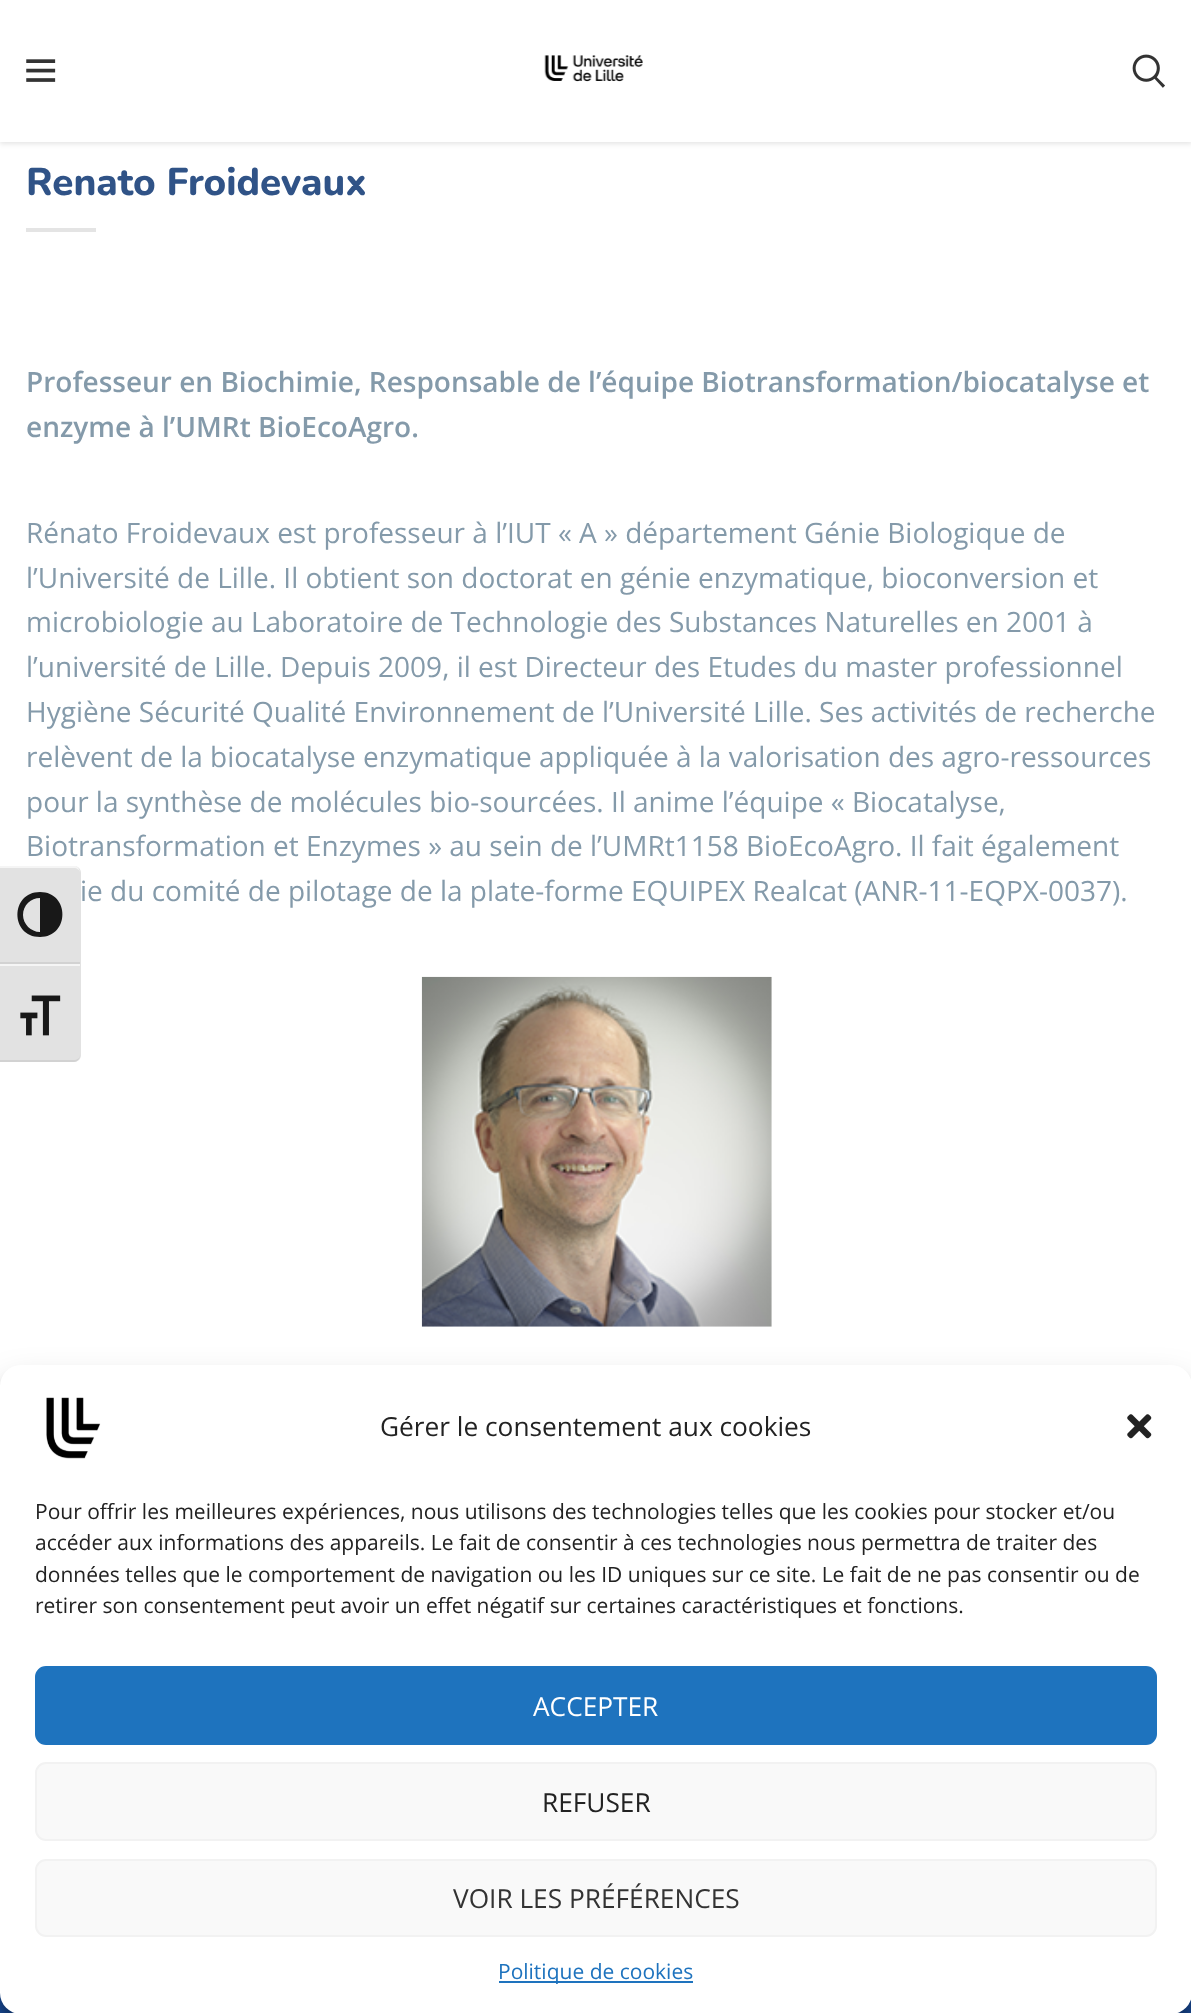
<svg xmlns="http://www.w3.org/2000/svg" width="1191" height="2013">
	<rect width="100%" height="100%" fill="#FFFFFF" />
	<rect x="0" y="2" width="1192" height="142" fill="#000000" fill-opacity="0.1" filter="blur(2.5px)" />
	<rect x="0" y="0" width="1191" height="142" fill="#FFFFFF" />
	<image x="26" y="59" width="30" height="23" href="assets/img1.png" />
	<image x="544" y="55" width="99" height="27" href="assets/img2.png" />
	<image x="1132" y="54" width="33" height="34" href="assets/img3.png" />
	<text x="26" y="195" font-family="Nunito" font-size="38.5" font-weight="800" fill="#305387">Renato Froidevaux</text>
	<rect x="26" y="228" width="70" height="4" fill="#E4E4E4" />
	<g font-family="Open Sans" font-size="28" font-weight="600" fill="#849AAA">
		<text x="26" y="392">Professeur en Biochimie, Responsable de l’équipe Biotransformation/biocatalyse et</text>
		<text x="26" y="437">enzyme à l’UMRt BioEcoAgro.</text>
	</g>
	<g font-family="Open Sans" font-size="28" fill="#849AAA">
		<text x="26" y="543">Rénato Froidevaux est professeur à l’IUT « A » département Génie Biologique de</text>
		<text x="26" y="588">l’Université de Lille. Il obtient son doctorat en génie enzymatique, bioconversion et</text>
		<text x="26" y="632">microbiologie au Laboratoire de Technologie des Substances Naturelles en 2001 à</text>
		<text x="26" y="677">l’université de Lille. Depuis 2009, il est Directeur des Etudes du master professionnel</text>
		<text x="26" y="722">Hygiène Sécurité Qualité Environnement de l’Université Lille. Ses activités de recherche</text>
		<text x="26" y="767">relèvent de la biocatalyse enzymatique appliquée à la valorisation des agro-ressources</text>
		<text x="26" y="812">pour la synthèse de molécules bio-sourcées. Il anime l’équipe « Biocatalyse,</text>
		<text x="26" y="856">Biotransformation et Enzymes » au sein de l’UMRt1158 BioEcoAgro. Il fait également</text>
		<text x="80" y="901">ie du comité de pilotage de la plate-forme EQUIPEX Realcat (ANR-11-EQPX-0037).</text>
	</g>
	<image x="421" y="976" width="351" height="351" href="assets/img4.png" />
	<rect x="0" y="1993" width="1191" height="20" fill="#1A4D9C" />
	<path d="M0 866H74C78 866 81 869 81 873V964H0Z" fill="#E2E2E2" />
	<path d="M0 868H74C77 868 80 870 80 873C80 870 78 867 76 866H0Z" fill="#F5F5F5" />
	<rect x="0" y="962" width="80" height="2" fill="#D2D2D2" />
	<path d="M40 892C10 892 10 937 40 937C70 937 70 892 40 892ZM23 915C23 905 31 898 40 898V932C31 932 23 924 23 915Z" fill="#181818" />
	<path d="M0 964H81V1055C81 1059 78 1062 74 1062H0Z" fill="#E2E2E2" />
	<rect x="0" y="964" width="80" height="2" fill="#F5F5F5" />
	<path d="M0 1062H74C77 1062 80 1059 80 1055C80 1058 77 1060 74 1060H0Z" fill="#D2D2D2" />
	<image x="20" y="995" width="41" height="41" href="assets/img5.png" />
	<rect x="0" y="1376" width="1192" height="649" rx="21" fill="#000000" fill-opacity="0.23" filter="blur(5px)" />
	<rect x="0" y="1383" width="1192" height="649" rx="21" fill="#000000" fill-opacity="0.19" filter="blur(17.5px)" />
	<rect x="0" y="1365" width="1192" height="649" rx="21" fill="#FFFFFF" />
	<image x="46" y="1397" width="55" height="62" href="assets/img6.png" />
	<text x="380" y="1436" font-family="Open Sans" font-size="26.25" fill="#222222">Gérer le consentement aux cookies</text>
	<image x="1127" y="1414" width="25" height="25" href="assets/img7.png" />
	<g font-family="Open Sans" font-size="21" fill="#222222">
		<text x="35" y="1519">Pour offrir les meilleures expériences, nous utilisons des technologies telles que les cookies pour stocker et/ou</text>
		<text x="35" y="1550">accéder aux informations des appareils. Le fait de consentir à ces technologies nous permettra de traiter des</text>
		<text x="35" y="1582">données telles que le comportement de navigation ou les ID uniques sur ce site. Le fait de ne pas consentir ou de</text>
		<text x="35" y="1613">retirer son consentement peut avoir un effet négatif sur certaines caractéristiques et fonctions.</text>
	</g>
	<rect x="36" y="1667" width="1120" height="77" rx="10" fill="#1E73BE" stroke="#1E73BE" stroke-width="2" />
	<text x="533" y="1716" font-family="Open Sans" font-size="26.25" fill="#FFFFFF">ACCEPTER</text>
	<rect x="36" y="1763" width="1120" height="77" rx="10" fill="#F9F9F9" stroke="#F2F2F2" stroke-width="2" />
	<text x="542" y="1812" font-family="Open Sans" font-size="26.25" fill="#222222">REFUSER</text>
	<rect x="36" y="1860" width="1120" height="76" rx="10" fill="#F9F9F9" stroke="#F2F2F2" stroke-width="2" />
	<text x="453" y="1908" font-family="Open Sans" font-size="26.25" fill="#333333">VOIR LES PRÉFÉRENCES</text>
	<rect x="499" y="1981" width="194" height="2" fill="#1E73BE" />
	<text x="498" y="1979" font-family="Open Sans" font-size="21" fill="#1E73BE">Politique de cookies</text>
</svg>
